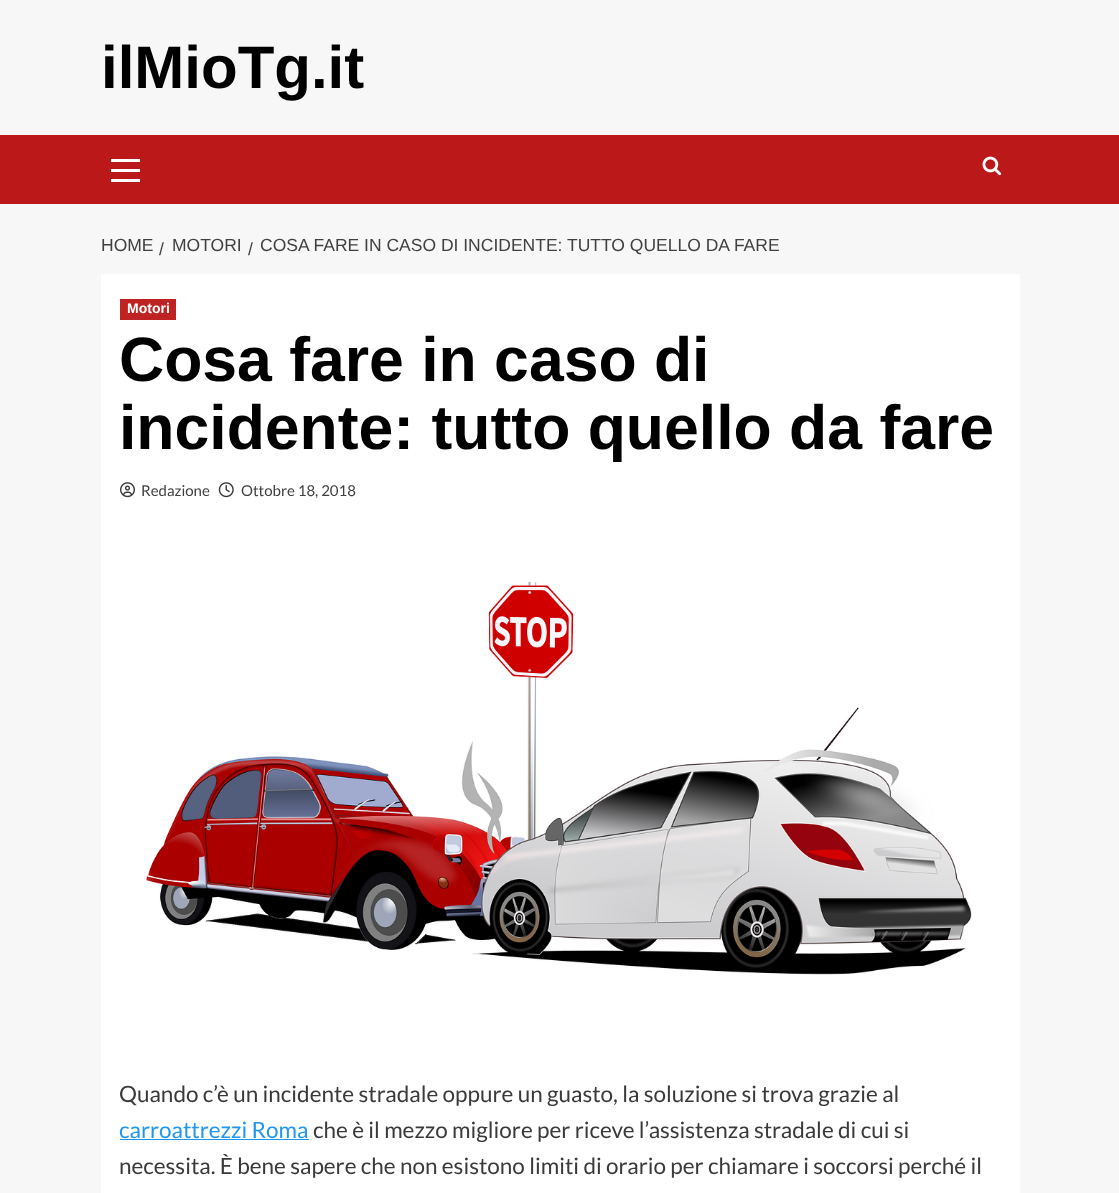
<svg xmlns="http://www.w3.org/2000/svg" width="1119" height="1193">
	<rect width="100%" height="100%" fill="#F7F7F7" />
	<text x="101" y="88" font-family="Liberation Sans" font-size="60" font-weight="700" fill="#000000">ilMioTg.it</text>
	<rect x="0" y="135" width="1119" height="69" fill="#BB1919" />
	<rect x="111" y="169" width="29" height="3" fill="#FFFFFF" />
	<rect x="111" y="159" width="29" height="3" fill="#FFFFFF" />
	<rect x="111" y="179" width="29" height="3" fill="#FFFFFF" />
	<image x="982" y="156" width="20" height="20" href="assets/img1.png" />
	<g font-family="Liberation Sans" font-size="17.5" fill="#404040">
		<text x="101" y="251">HOME</text>
		<text x="159" y="255">/</text>
		<text x="172" y="251">MOTORI</text>
		<text x="248" y="255">/</text>
		<text x="260" y="251">COSA FARE IN CASO DI INCIDENTE: TUTTO QUELLO DA FARE</text>
	</g>
	<rect x="101" y="274" width="919" height="919" fill="#FFFFFF" />
	<rect x="120" y="299" width="56" height="21" fill="#BE2222" />
	<text x="127" y="313" font-family="Liberation Sans" font-size="14" font-weight="700" fill="#FFFFFF">Motori</text>
	<g font-family="Liberation Sans" font-size="62.5" font-weight="700" fill="#000000">
		<text x="119" y="381">Cosa fare in caso di</text>
		<text x="119" y="449">incidente: tutto quello da fare</text>
	</g>
	<image x="120" y="482" width="15" height="16" href="assets/img2.png" />
	<text x="141" y="496" font-family="Lato" font-size="15" fill="#404040">Redazione</text>
	<image x="218" y="482" width="16" height="16" href="assets/img3.png" />
	<text x="241" y="496" font-family="Lato" font-size="15" fill="#404040">Ottobre 18, 2018</text>
	<image x="146" y="582" width="826" height="393" href="assets/img4.png" />
	<text x="119" y="1102" font-family="Lato" font-size="22.5" fill="#3A3A3A">Quando c’è un incidente stradale oppure un guasto, la soluzione si trova grazie al</text>
	<text x="119" y="1138" font-family="Lato" font-size="22.5" fill="#2196F3">carroattrezzi Roma</text>
	<rect x="120" y="1139" width="189" height="1" fill="#2196F3" />
	<g font-family="Lato" font-size="22.5" fill="#3A3A3A">
		<text x="313" y="1138">che è il mezzo migliore per riceve l’assistenza stradale di cui si</text>
		<text x="119" y="1174">necessita. È bene sapere che non esistono limiti di orario per chiamare i soccorsi perché il</text>
	</g>
</svg>
